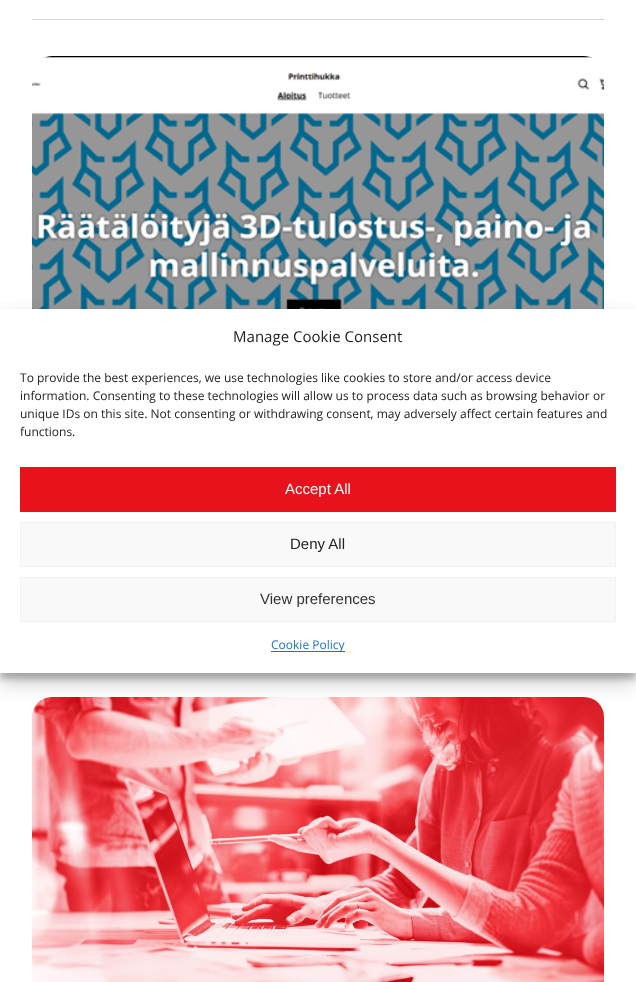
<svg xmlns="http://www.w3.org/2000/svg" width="636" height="982">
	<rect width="100%" height="100%" fill="#FFFFFF" />
	<rect x="32" y="19" width="572" height="1" fill="#D6D6D6" />
	<image x="32" y="56" width="572" height="253" href="assets/img1.png" />
	<image x="32" y="697" width="572" height="285" href="assets/img2.png" />
	<rect x="0" y="315" width="636" height="364" fill="#000000" fill-opacity="0.23" filter="blur(3px)" />
	<rect x="0" y="319" width="636" height="364" fill="#000000" fill-opacity="0.19" filter="blur(10px)" />
	<rect x="0" y="309" width="636" height="364" fill="#FFFFFF" />
	<text x="233" y="342" font-family="Open Sans" font-size="15" fill="#222222">Manage Cookie Consent</text>
	<g font-family="Open Sans" font-size="12" fill="#222222">
		<text x="20" y="382">To provide the best experiences, we use technologies like cookies to store and/or access device</text>
		<text x="20" y="400">information. Consenting to these technologies will allow us to process data such as browsing behavior or</text>
		<text x="20" y="418">unique IDs on this site. Not consenting or withdrawing consent, may adversely affect certain features and</text>
		<text x="20" y="436">functions.</text>
	</g>
	<rect x="20" y="467" width="596" height="45" fill="#E7121B" />
	<text x="285" y="494" font-family="Liberation Sans" font-size="15" fill="#FFFFFF">Accept All</text>
	<rect x="20.5" y="522.5" width="595" height="44" fill="#F9F9F9" stroke="#F2F2F2" />
	<text x="290" y="549" font-family="Liberation Sans" font-size="15" fill="#222222">Deny All</text>
	<rect x="20.5" y="577.5" width="595" height="44" fill="#F9F9F9" stroke="#F2F2F2" />
	<text x="260" y="604" font-family="Liberation Sans" font-size="15" fill="#333333">View preferences</text>
	<rect x="271" y="651" width="74" height="1" fill="#1E73BE" />
	<text x="271" y="649" font-family="Open Sans" font-size="12" fill="#1E73BE">Cookie Policy</text>
</svg>
